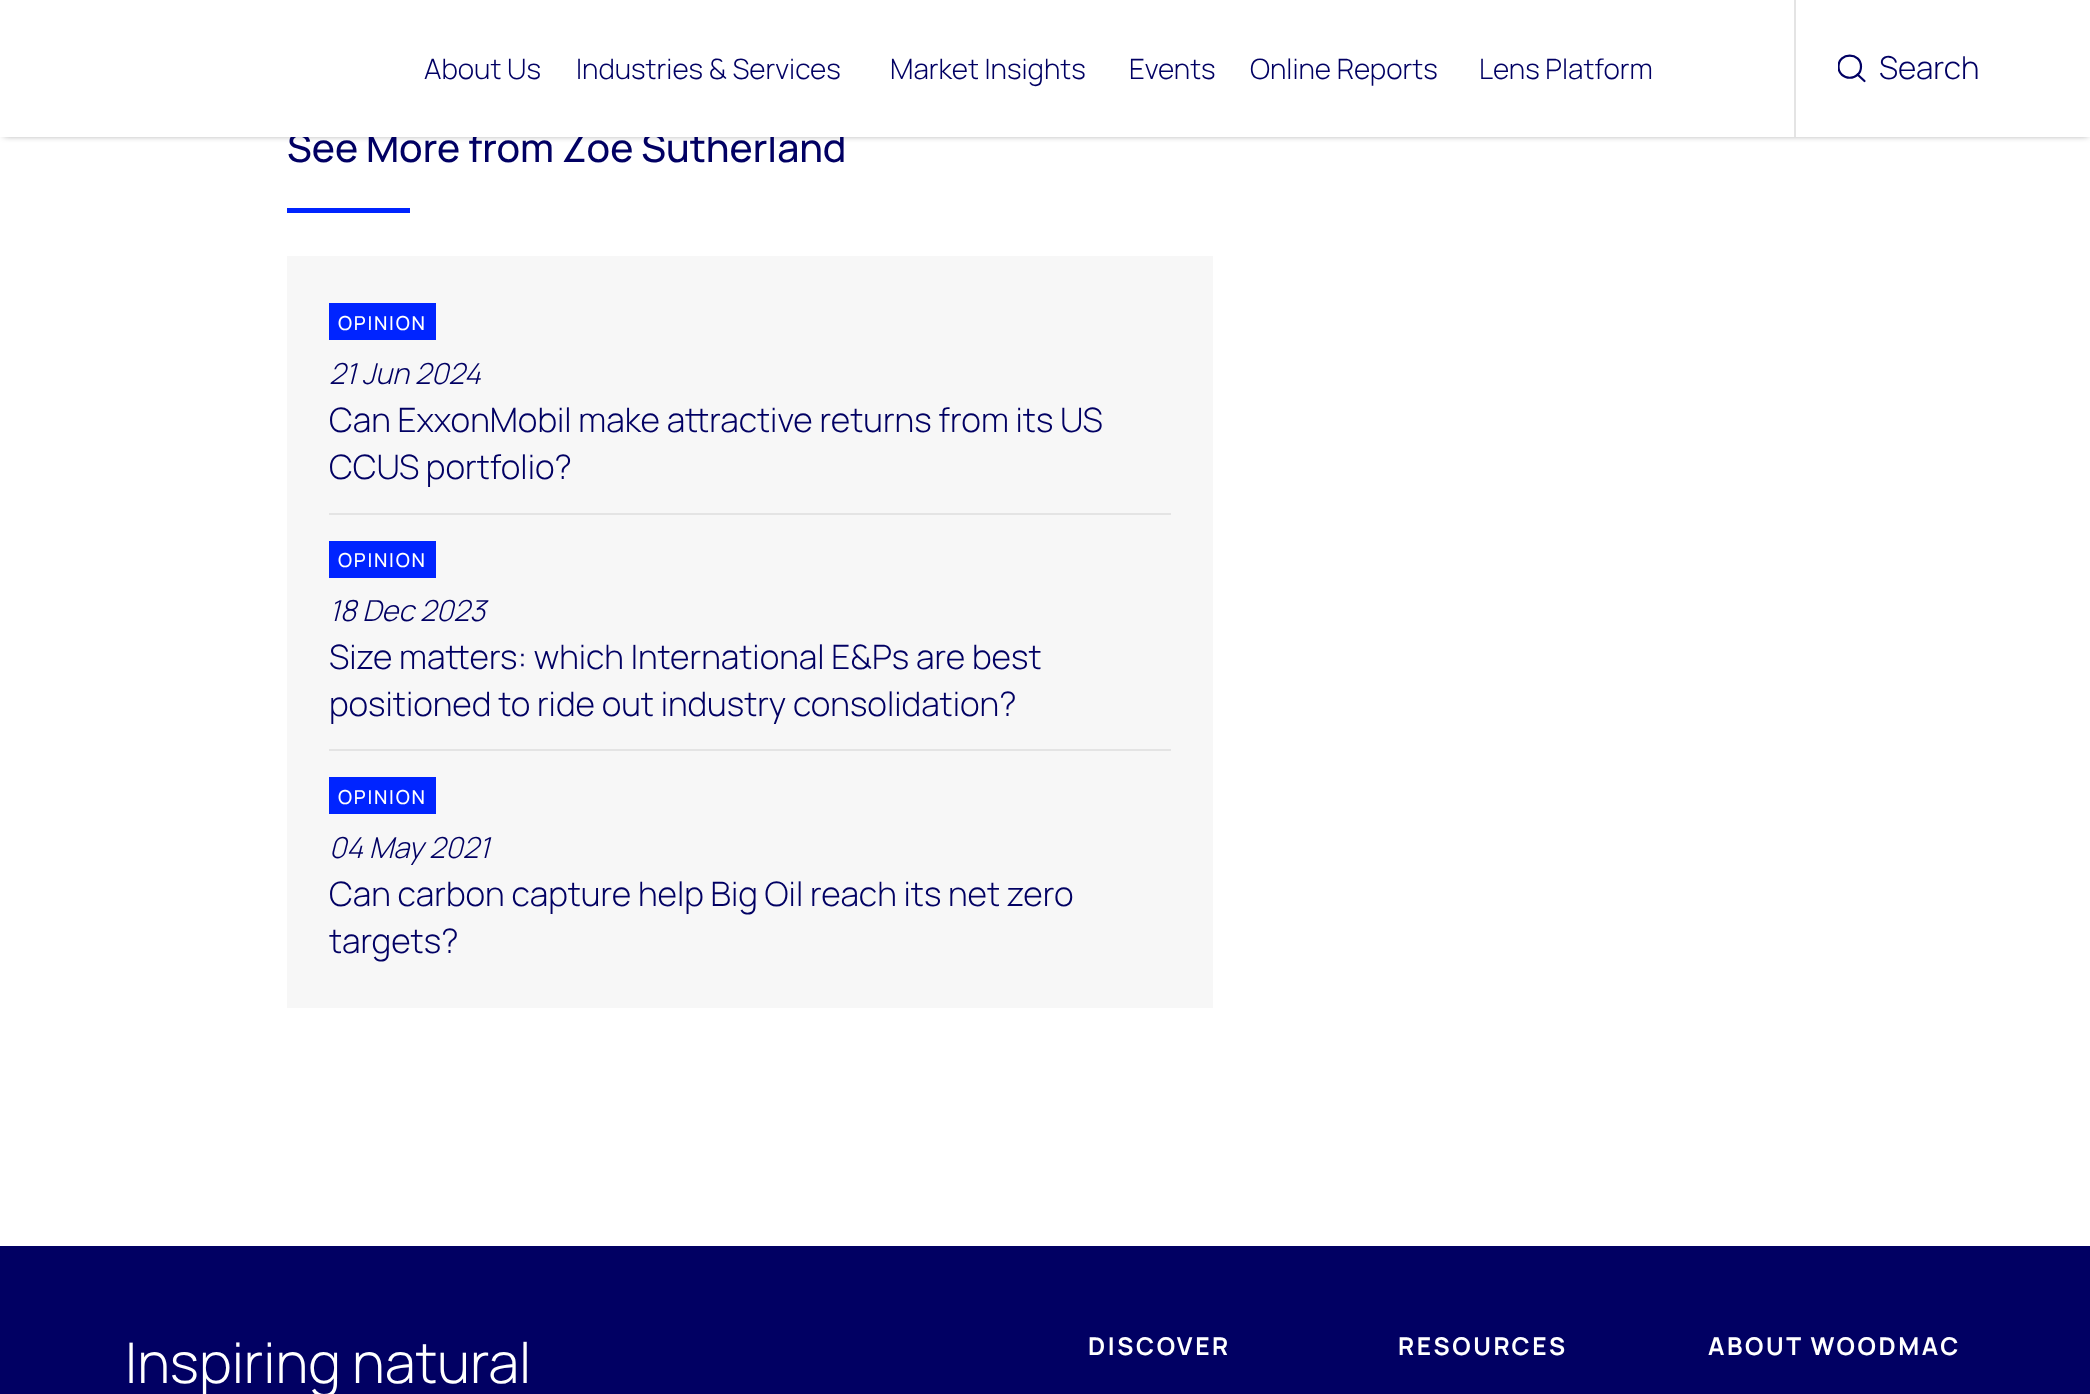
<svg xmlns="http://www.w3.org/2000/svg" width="2090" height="1394">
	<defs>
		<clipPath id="clip1"><rect x="1838" y="54" width="28" height="28" /></clipPath>
		<clipPath id="clip2"><path d="M1837.5 54H1865.5V82H1837.5Z" /></clipPath>
	</defs>
	<rect width="100%" height="100%" fill="#FFFFFF" />
	<rect x="4" y="5" width="2084" height="130" fill="#000000" fill-opacity="0.5" filter="blur(3.5px)" />
	<text x="287" y="162" font-family="Manrope" font-size="39.25" font-weight="500" fill="#010063">See More from Zoë Sutherland</text>
	<rect x="0" y="0" width="2090" height="137" fill="#FFFFFF" />
	<g font-family="Manrope" font-size="28" font-weight="300" fill="#010063">
		<text x="424" y="79">About Us</text>
		<text x="576" y="79">Industries &amp; Services</text>
		<text x="890" y="79">Market Insights</text>
		<text x="1129" y="79">Events</text>
		<text x="1250" y="79">Online Reports</text>
		<text x="1479" y="79">Lens Platform</text>
	</g>
	<g clip-path="url(#clip1)">
		<g clip-path="url(#clip2)">
			<path d="M1838.5 66.5C1838.5 81.5 1861 81.5 1861 66.5C1861 52 1838.5 52 1838.5 66.5Z" fill="none" stroke="#010063" stroke-width="2.2" stroke-linecap="round" stroke-linejoin="round" />
		</g>
	</g>
	<path d="M1864.5 81L1857.5 74.5" fill="none" stroke="#010063" stroke-width="2.2" stroke-linecap="round" stroke-linejoin="round" />
	<rect x="1794" y="0" width="2" height="137" fill="#E4E4E4" />
	<text x="1879" y="79" font-family="Manrope" font-size="31.5" font-weight="300" fill="#010063">Search</text>
	<rect x="287" y="208" width="123" height="5" fill="#0024FF" />
	<rect x="287" y="256" width="926" height="752" fill="#F7F7F7" />
	<rect x="329" y="513" width="842" height="2" fill="#E4E4E4" />
	<rect x="329" y="303" width="107" height="37" fill="#0024FF" />
	<text x="338" y="330" font-family="Manrope" font-size="19.25" font-weight="500" letter-spacing="1.75" fill="#FFFFFF">OPINION</text>
	<text x="329" y="384" font-family="Manrope" font-size="29" font-weight="300" font-style="italic" fill="#010063">21 Jun 2024</text>
	<g font-family="Manrope" font-size="33.6" font-weight="300" fill="#010063">
		<text x="329" y="432">Can ExxonMobil make attractive returns from its US</text>
		<text x="329" y="479">CCUS portfolio?</text>
	</g>
	<rect x="329" y="749" width="842" height="2" fill="#E4E4E4" />
	<rect x="329" y="541" width="107" height="37" fill="#0024FF" />
	<text x="338" y="567" font-family="Manrope" font-size="19.25" font-weight="500" letter-spacing="1.75" fill="#FFFFFF">OPINION</text>
	<text x="329" y="621" font-family="Manrope" font-size="29" font-weight="300" font-style="italic" fill="#010063">18 Dec 2023</text>
	<g font-family="Manrope" font-size="33.6" font-weight="300" fill="#010063">
		<text x="329" y="669">Size matters: which International E&amp;Ps are best</text>
		<text x="329" y="716">positioned to ride out industry consolidation?</text>
	</g>
	<rect x="329" y="777" width="107" height="37" fill="#0024FF" />
	<text x="338" y="804" font-family="Manrope" font-size="19.25" font-weight="500" letter-spacing="1.75" fill="#FFFFFF">OPINION</text>
	<text x="329" y="858" font-family="Manrope" font-size="29" font-weight="300" font-style="italic" fill="#010063">04 May 2021</text>
	<g font-family="Manrope" font-size="33.6" font-weight="300" fill="#010063">
		<text x="329" y="906">Can carbon capture help Big Oil reach its net zero</text>
		<text x="329" y="953">targets?</text>
	</g>
	<rect x="0" y="1246" width="2090" height="148" fill="#010063" />
	<text x="125" y="1383" font-family="Manrope" font-size="56" font-weight="300" fill="#FFFFFF">Inspiring natural</text>
	<g font-family="Manrope" font-size="24.5" font-weight="700" letter-spacing="2.6" fill="#FFFFFF">
		<text x="1088" y="1355">DISCOVER</text>
		<text x="1398" y="1355">RESOURCES</text>
		<text x="1708" y="1355">ABOUT WOODMAC</text>
	</g>
</svg>
